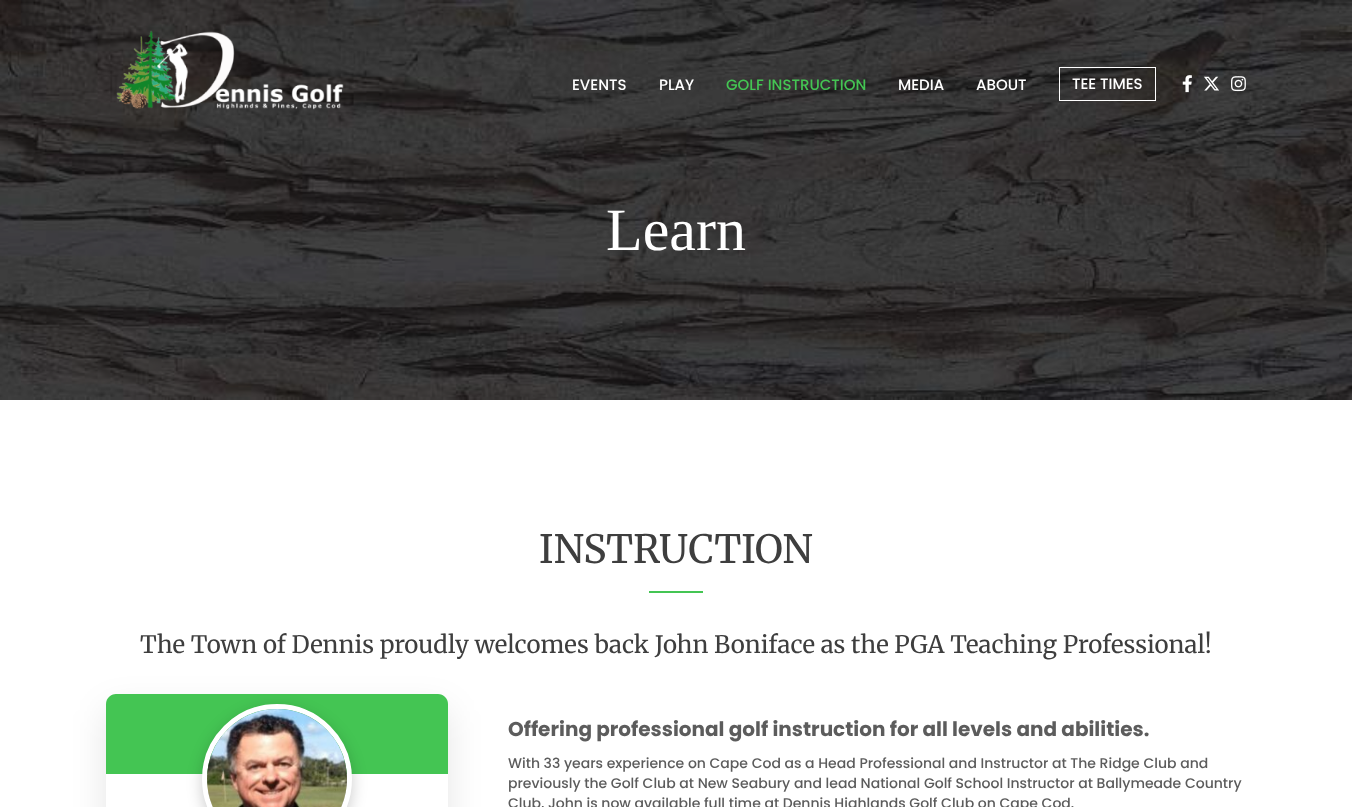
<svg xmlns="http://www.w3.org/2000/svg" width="1352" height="807">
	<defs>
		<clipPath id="clip1"><path d="M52 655H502V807H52ZM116 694H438C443.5 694 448 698.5 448 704V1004C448 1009.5 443.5 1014 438 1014H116C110.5 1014 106 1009.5 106 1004V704C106 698.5 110.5 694 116 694Z" clip-rule="evenodd" /></clipPath>
	</defs>
	<rect width="100%" height="100%" fill="#FFFFFF" />
	<image x="0" y="0" width="1352" height="400" href="assets/img5.png" />
	<image x="116" y="30" width="228" height="80" href="assets/img1.png" />
	<g font-family="Poppins" font-size="15" font-weight="500" fill="#FFFFFF">
		<text x="572" y="90">EVENTS</text>
		<text x="659" y="90">PLAY</text>
	</g>
	<text x="726" y="90" font-family="Poppins" font-size="15" font-weight="500" fill="#44C553">GOLF INSTRUCTION</text>
	<g font-family="Poppins" font-size="15" font-weight="500" fill="#FFFFFF">
		<text x="898" y="90">MEDIA</text>
		<text x="976" y="90">ABOUT</text>
	</g>
	<rect x="1059.5" y="67.5" width="96" height="33" fill="none" stroke="#FFFFFF" />
	<text x="1072" y="89" font-family="Poppins" font-size="15" font-weight="500" fill="#FFFFFF">TEE TIMES</text>
	<image x="1182" y="75" width="10" height="18" href="assets/img2.png" />
	<image x="1204" y="76" width="15" height="15" href="assets/img3.png" />
	<image x="1231" y="76" width="15" height="16" href="assets/img4.png" />
	<text x="606" y="250" font-family="Liberation Serif" font-size="60" fill="#FFFFFF">Learn</text>
	<text x="539" y="563" font-family="Merriweather" font-size="39" fill="#3E3E3E">INSTRUCTION</text>
	<rect x="649" y="591" width="54" height="2" fill="#44C553" />
	<text x="140" y="653" font-family="Merriweather" font-size="24" fill="#3E3E3E">The Town of Dennis proudly welcomes back John Boniface as the PGA Teaching Professional!</text>
	<g clip-path="url(#clip1)">
		<rect x="106" y="709" width="342" height="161" rx="10" fill="#000000" fill-opacity="0.1" filter="blur(17.5px)" />
	</g>
	<path d="M116 694H438C443.5 694 448 698.5 448 704V774H106V704C106 698.5 110.5 694 116 694Z" fill="#44C553" />
	<rect x="202" y="709" width="150" height="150" rx="75" fill="#000000" fill-opacity="0.2" filter="blur(7.5px)" />
	<circle cx="277" cy="779" r="72.5" fill="none" stroke="#FFFFFF" stroke-width="5" />
	<image x="207" y="709" width="140" height="98" href="assets/img6.png" />
	<text x="508" y="736" font-family="Poppins" font-size="20" font-weight="700" fill="#5C5C5C">Offering professional golf instruction for all levels and abilities.</text>
	<g font-family="Poppins" font-size="14" font-weight="500" fill="#5C5C5C">
		<text x="508" y="768">With 33 years experience on Cape Cod as a Head Professional and Instructor at The Ridge Club and</text>
		<text x="508" y="788">previously the Golf Club at New Seabury and lead National Golf School Instructor at Ballymeade Country</text>
		<text x="508" y="808">Club, John is now available full time at Dennis Highlands Golf Club on Cape Cod.</text>
	</g>
</svg>
